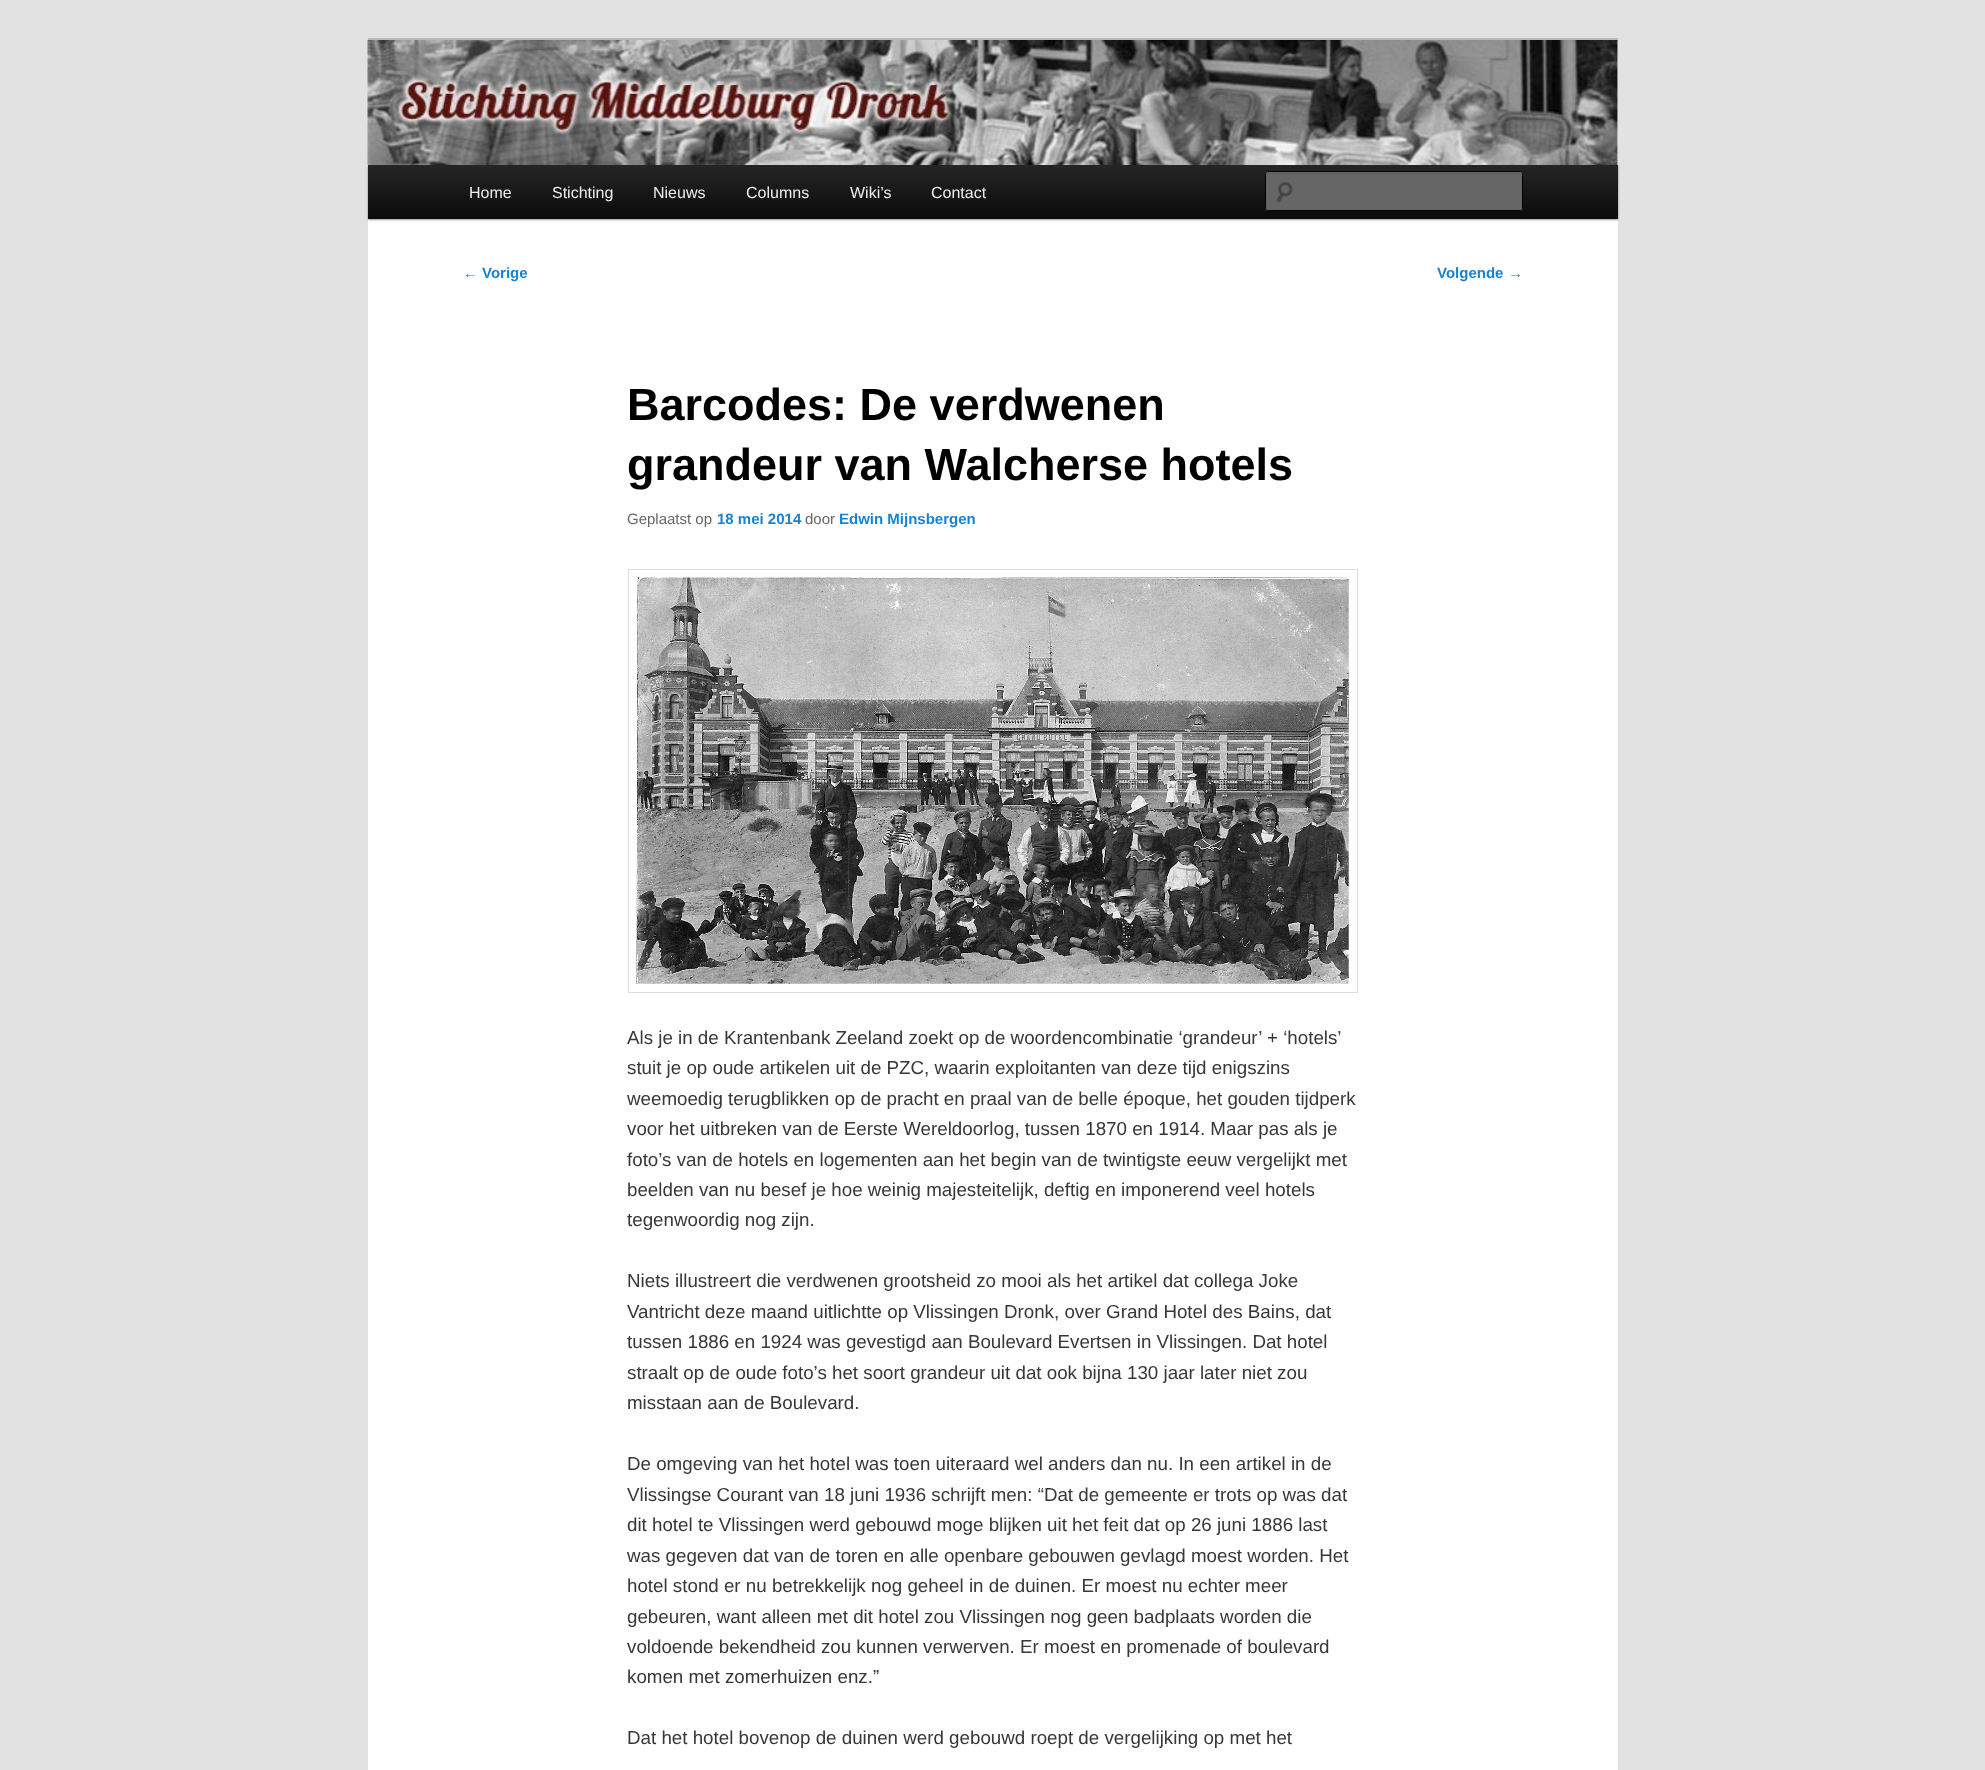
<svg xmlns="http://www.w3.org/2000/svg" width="1985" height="1770">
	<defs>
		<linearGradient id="g1" gradientUnits="userSpaceOnUse" x1="993" y1="165" x2="993" y2="219"><stop offset="0" stop-color="#252525" /><stop offset="1" stop-color="#0A0A0A" /></linearGradient>
	</defs>
	<rect width="100%" height="100%" fill="#E2E2E2" />
	<rect x="368" y="41" width="1250" height="1729" fill="#FFFFFF" />
	<rect x="368" y="38" width="1250" height="3" fill="#BBBBBB" />
	<rect x="368" y="166" width="1250" height="54" fill="#000000" fill-opacity="0.4" filter="blur(1px)" />
	<image x="367" y="40" width="1251" height="125" href="assets/img1.png" />
	<rect x="368" y="165" width="1250" height="54" fill="url(#g1)" />
	<g font-family="Liberation Sans" font-size="16" fill="#EEEEEE">
		<text x="469" y="198">Home</text>
		<text x="552" y="198">Stichting</text>
		<text x="653" y="198">Nieuws</text>
		<text x="746" y="198">Columns</text>
		<text x="850" y="198">Wiki’s</text>
		<text x="931" y="198">Contact</text>
	</g>
	<rect x="1265" y="171" width="258" height="40" rx="2.5" fill="#666666" />
	<image x="1276" y="182" width="17" height="21" href="assets/img2.png" />
	<path d="M1268 174H1520C1521 174 1521 174 1521 175V173H1267C1266 173 1266 174 1266 175C1266 174 1267 174 1268 174Z" fill="#5C5C5C" />
	<rect x="1265.5" y="171.5" width="257" height="39" rx="2" fill="none" stroke="#000000" />
	<text x="463" y="278" font-family="Liberation Sans" font-size="15" fill="#1982D1">←</text>
	<g font-family="Liberation Sans" font-size="15" font-weight="700" fill="#1982D1">
		<text x="482" y="278">Vorige</text>
		<text x="1437" y="278">Volgende</text>
	</g>
	<text x="1508" y="278" font-family="Liberation Sans" font-size="15" fill="#1982D1">→</text>
	<g font-family="Liberation Sans" font-size="45" font-weight="700" fill="#000000">
		<text x="627" y="420">Barcodes: De verdwenen</text>
		<text x="627" y="480">grandeur van Walcherse hotels</text>
	</g>
	<text x="627" y="524" font-family="Liberation Sans" font-size="15" fill="#666666">Geplaatst op</text>
	<text x="717" y="524" font-family="Liberation Sans" font-size="15" font-weight="700" fill="#1982D1">18 mei 2014</text>
	<text x="805" y="524" font-family="Liberation Sans" font-size="15" fill="#666666">door</text>
	<text x="839" y="524" font-family="Liberation Sans" font-size="15" font-weight="700" fill="#1982D1">Edwin Mijnsbergen</text>
	<rect x="628.5" y="569.5" width="729" height="423" fill="none" stroke="#DDDDDD" />
	<image x="636" y="577" width="713" height="407" href="assets/img3.png" />
	<g font-family="Liberation Sans" font-size="18.75" fill="#373737">
		<text x="627" y="1044">Als je in de Krantenbank Zeeland zoekt op de woordencombinatie ‘grandeur’ + ‘hotels’</text>
		<text x="627" y="1074">stuit je op oude artikelen uit de PZC, waarin exploitanten van deze tijd enigszins</text>
		<text x="627" y="1105">weemoedig terugblikken op de pracht en praal van de belle époque, het gouden tijdperk</text>
		<text x="627" y="1135">voor het uitbreken van de Eerste Wereldoorlog, tussen 1870 en 1914. Maar pas als je</text>
		<text x="627" y="1166">foto’s van de hotels en logementen aan het begin van de twintigste eeuw vergelijkt met</text>
		<text x="627" y="1196">beelden van nu besef je hoe weinig majesteitelijk, deftig en imponerend veel hotels</text>
		<text x="627" y="1226">tegenwoordig nog zijn.</text>
		<text x="627" y="1287">Niets illustreert die verdwenen grootsheid zo mooi als het artikel dat collega Joke</text>
		<text x="627" y="1318">Vantricht deze maand uitlichtte op Vlissingen Dronk, over Grand Hotel des Bains, dat</text>
		<text x="627" y="1348">tussen 1886 en 1924 was gevestigd aan Boulevard Evertsen in Vlissingen. Dat hotel</text>
		<text x="627" y="1379">straalt op de oude foto’s het soort grandeur uit dat ook bijna 130 jaar later niet zou</text>
		<text x="627" y="1409">misstaan aan de Boulevard.</text>
		<text x="627" y="1470">De omgeving van het hotel was toen uiteraard wel anders dan nu. In een artikel in de</text>
		<text x="627" y="1501">Vlissingse Courant van 18 juni 1936 schrijft men: “Dat de gemeente er trots op was dat</text>
		<text x="627" y="1531">dit hotel te Vlissingen werd gebouwd moge blijken uit het feit dat op 26 juni 1886 last</text>
		<text x="627" y="1562">was gegeven dat van de toren en alle openbare gebouwen gevlagd moest worden. Het</text>
		<text x="627" y="1592">hotel stond er nu betrekkelijk nog geheel in de duinen. Er moest nu echter meer</text>
		<text x="627" y="1623">gebeuren, want alleen met dit hotel zou Vlissingen nog geen badplaats worden die</text>
		<text x="627" y="1653">voldoende bekendheid zou kunnen verwerven. Er moest en promenade of boulevard</text>
		<text x="627" y="1683">komen met zomerhuizen enz.”</text>
		<text x="627" y="1744">Dat het hotel bovenop de duinen werd gebouwd roept de vergelijking op met het</text>
	</g>
</svg>
